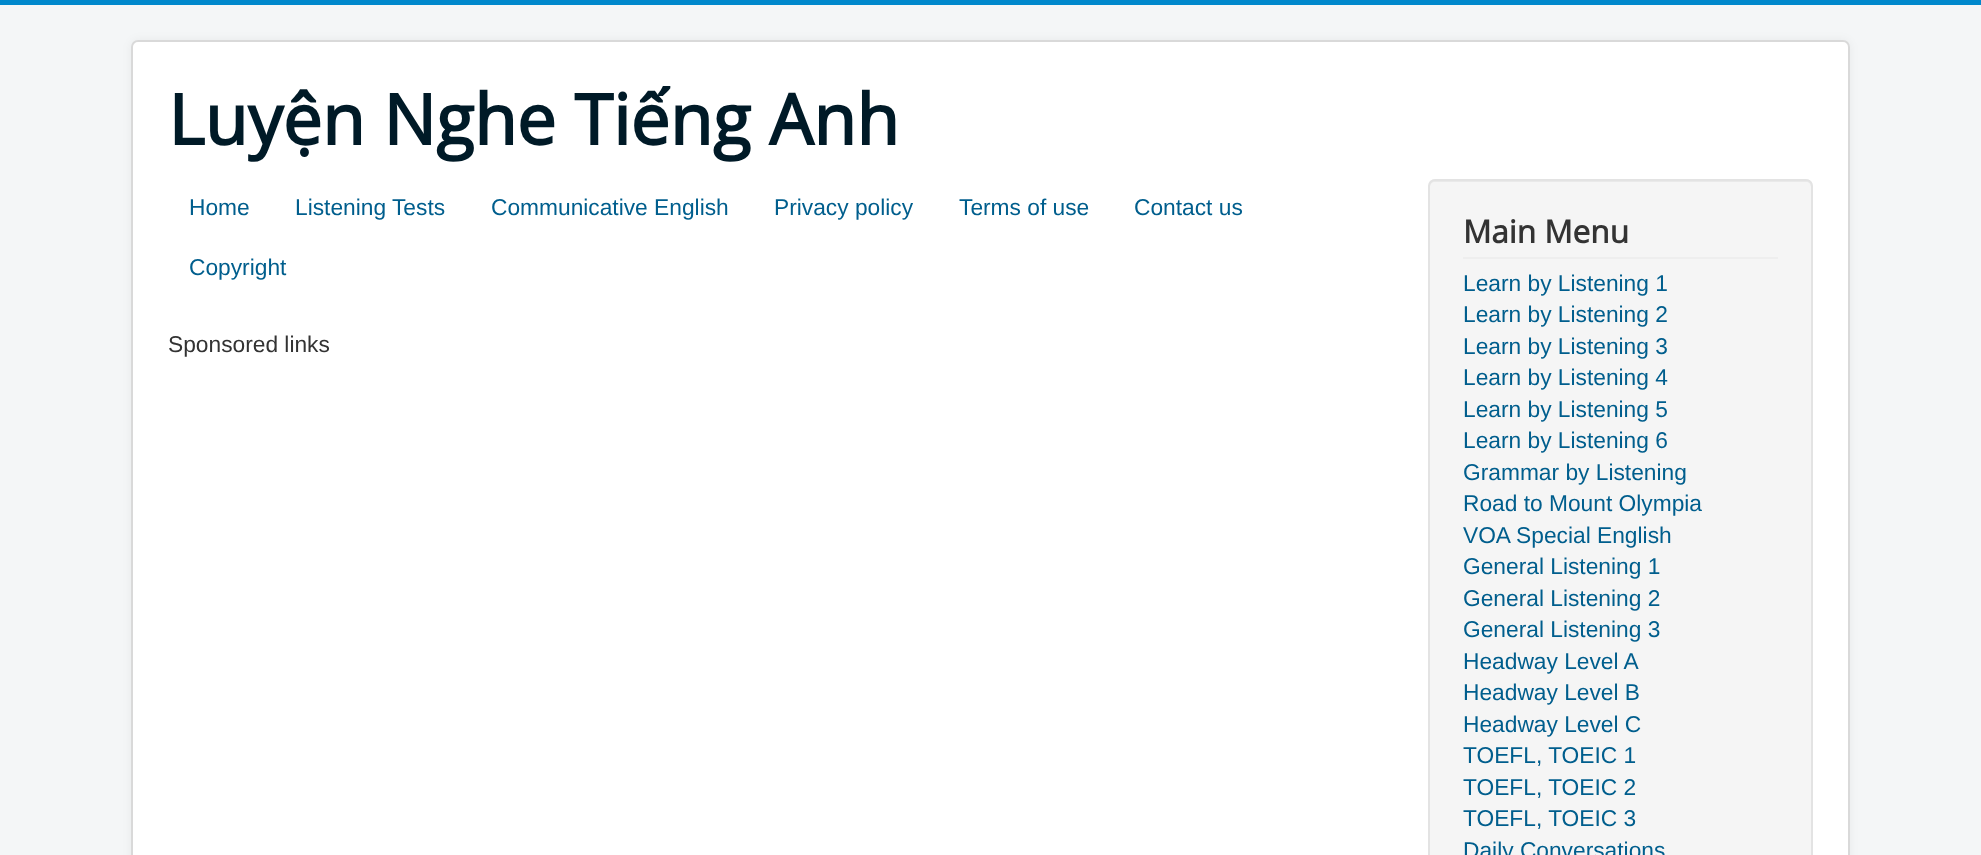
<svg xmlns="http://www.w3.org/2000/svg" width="1981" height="855">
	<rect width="100%" height="100%" fill="#F4F6F7" />
	<rect x="0" y="0" width="1981" height="5" fill="#0088CC" />
	<rect x="131" y="40" width="1719" height="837" rx="7" fill="#000000" fill-opacity="0.05" filter="blur(5px)" />
	<rect x="131" y="40" width="1719" height="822" rx="7" fill="#FFFFFF" />
	<rect x="132" y="41" width="1717" height="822" rx="6" fill="none" stroke="#000000" stroke-opacity="0.15" stroke-width="2" />
	<text x="168" y="145" font-family="Open Sans" font-size="70" font-weight="700" fill="#001A27">Luyện Nghe Tiếng Anh</text>
	<g font-family="Liberation Sans" font-size="22.75" fill="#005E8D">
		<text x="189" y="215">Home</text>
		<text x="295" y="215">Listening Tests</text>
		<text x="491" y="215">Communicative English</text>
		<text x="774" y="215">Privacy policy</text>
		<text x="959" y="215">Terms of use</text>
		<text x="1134" y="215">Contact us</text>
		<text x="189" y="275">Copyright</text>
	</g>
	<text x="168" y="352" font-family="Liberation Sans" font-size="22.75" fill="#333333">Sponsored links</text>
	<rect x="1428" y="179" width="385" height="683" rx="7" fill="#F5F5F5" />
	<path d="M1435 182H1806C1809 182 1811 184 1811 187V185C1811 182 1809 180 1806 180H1435C1432 180 1430 182 1430 185V187C1430 184 1432 182 1435 182Z" fill="#E9E9E9" />
	<rect x="1429" y="180" width="383" height="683" rx="6" fill="none" stroke="#E3E3E3" stroke-width="2" />
	<rect x="1463" y="257" width="315" height="2" fill="#EEEEEE" />
	<text x="1463" y="243" font-family="Open Sans" font-size="31.5" font-weight="700" fill="#333333">Main Menu</text>
	<g font-family="Liberation Sans" font-size="22.75" fill="#005E8D">
		<text x="1463" y="291">Learn by Listening 1</text>
		<text x="1463" y="322">Learn by Listening 2</text>
		<text x="1463" y="354">Learn by Listening 3</text>
		<text x="1463" y="385">Learn by Listening 4</text>
		<text x="1463" y="417">Learn by Listening 5</text>
		<text x="1463" y="448">Learn by Listening 6</text>
		<text x="1463" y="480">Grammar by Listening</text>
		<text x="1463" y="511">Road to Mount Olympia</text>
		<text x="1463" y="543">VOA Special English</text>
		<text x="1463" y="574">General Listening 1</text>
		<text x="1463" y="606">General Listening 2</text>
		<text x="1463" y="637">General Listening 3</text>
		<text x="1463" y="669">Headway Level A</text>
		<text x="1463" y="700">Headway Level B</text>
		<text x="1463" y="732">Headway Level C</text>
		<text x="1463" y="763">TOEFL, TOEIC 1</text>
		<text x="1463" y="795">TOEFL, TOEIC 2</text>
		<text x="1463" y="826">TOEFL, TOEIC 3</text>
		<text x="1463" y="858">Daily Conversations</text>
	</g>
</svg>
